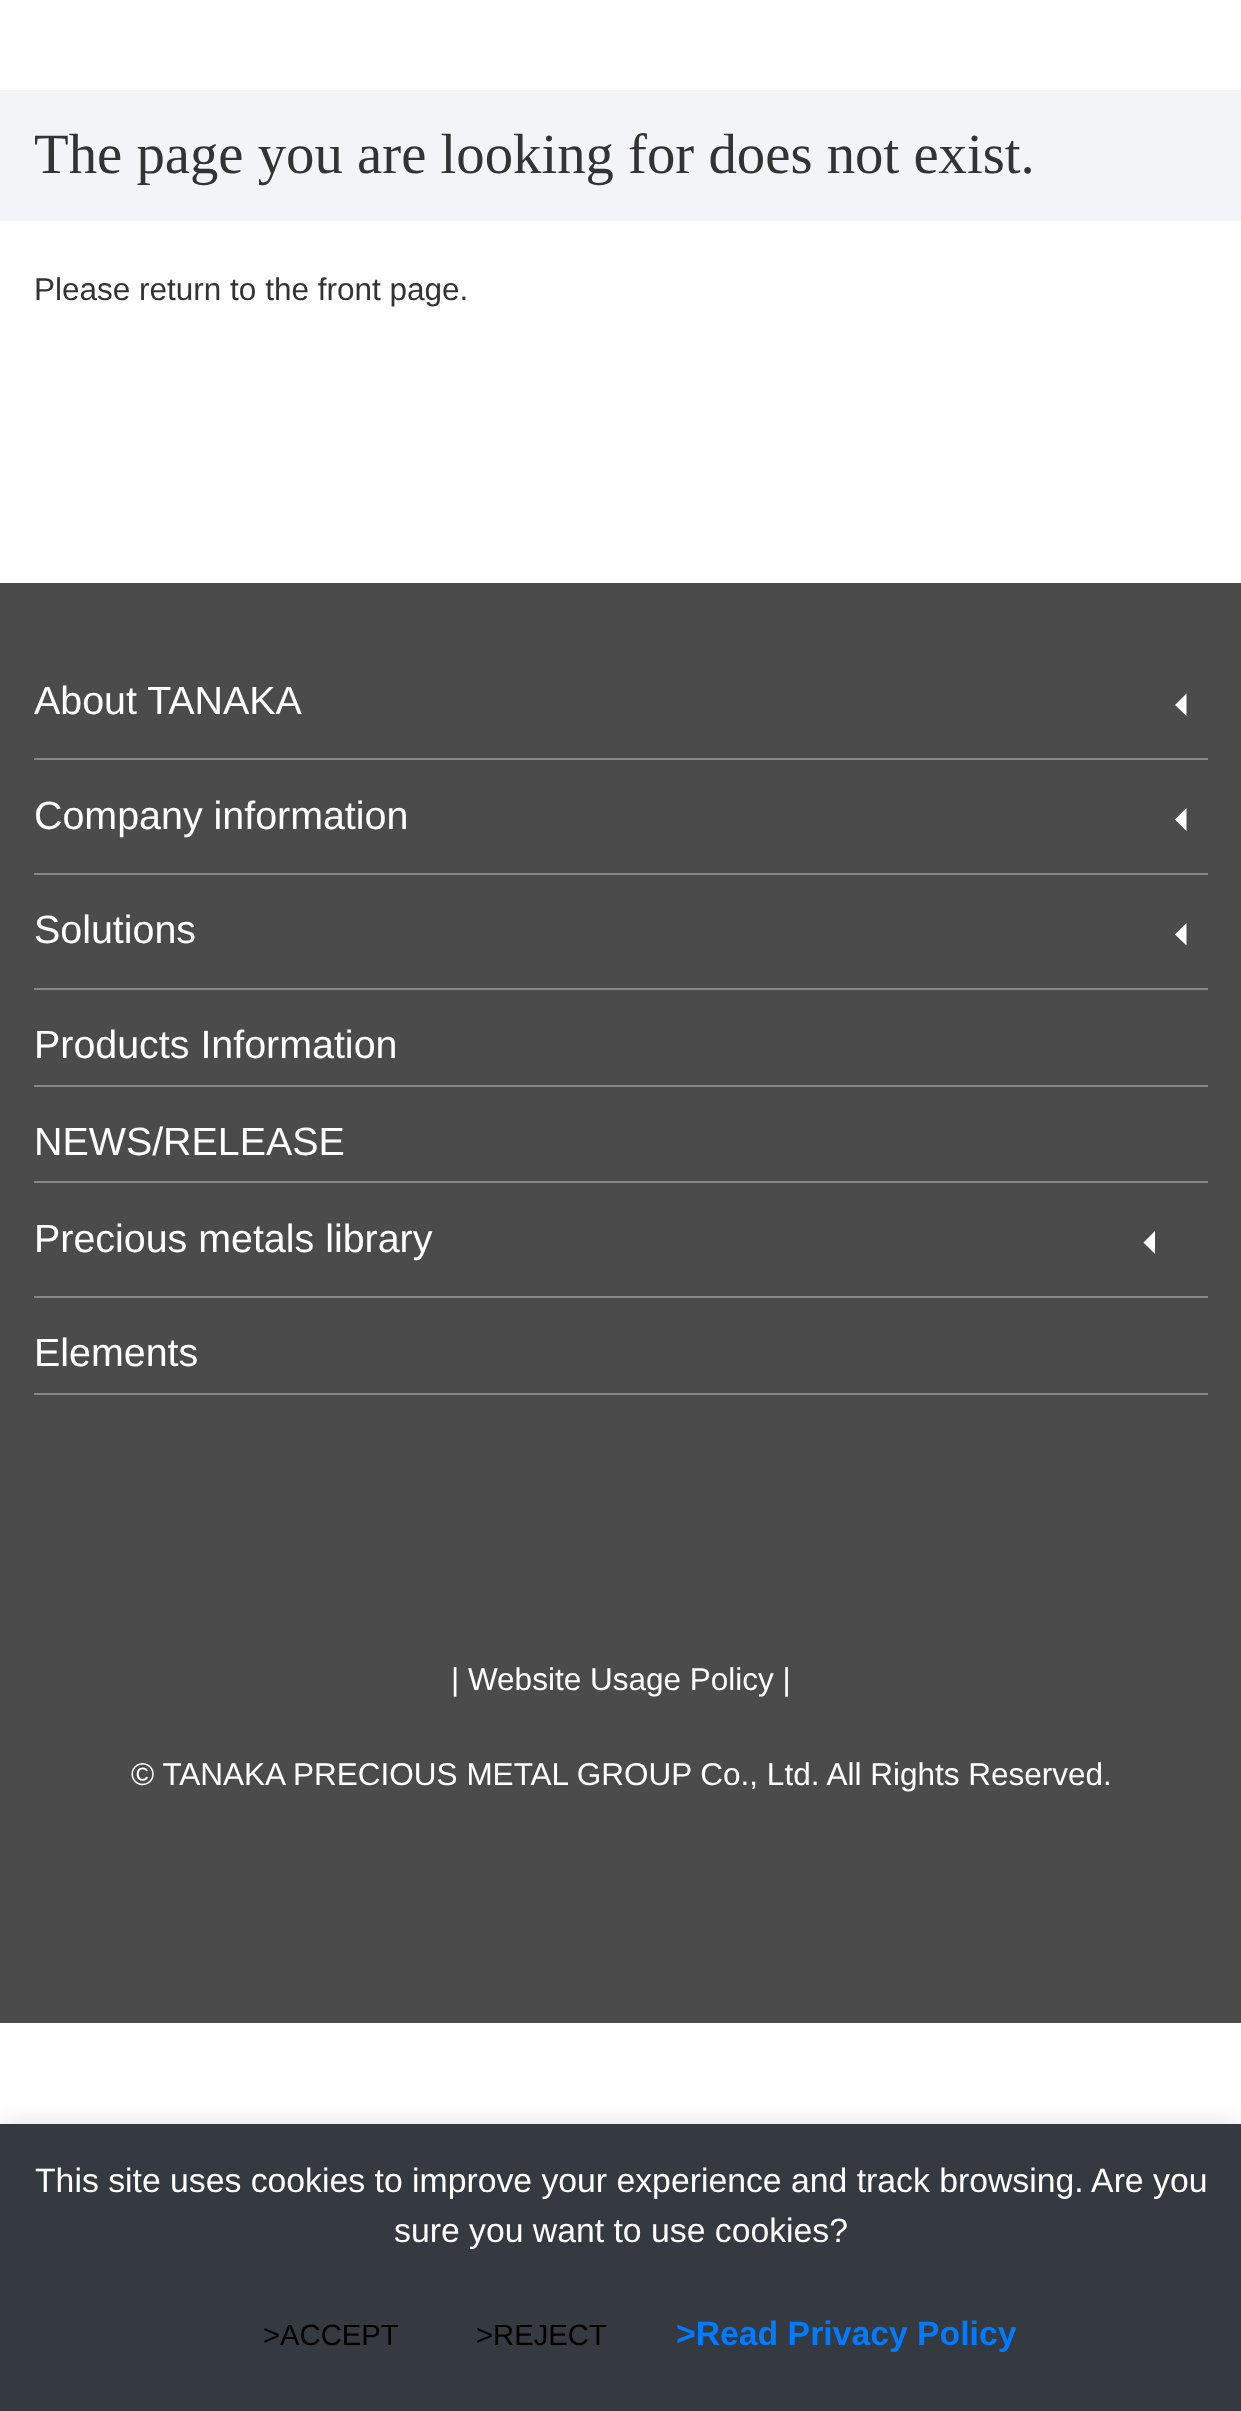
<svg xmlns="http://www.w3.org/2000/svg" width="1241" height="2411">
	<rect width="100%" height="100%" fill="#FFFFFF" />
	<rect x="0" y="90" width="1241" height="131" fill="#F2F4F8" />
	<text x="34" y="173" font-family="Liberation Serif" font-size="56.75" fill="#333333">The page you are looking for does not exist.</text>
	<text x="34" y="300" font-family="Liberation Sans" font-size="31.5" fill="#333333">Please return to the front page.</text>
	<rect x="0" y="583" width="1241" height="1440" fill="#4B4B4B" />
	<rect x="34" y="758" width="1174" height="2" fill="#888888" />
	<text x="34" y="714" font-family="Liberation Sans" font-size="39.4" fill="#FFFFFF">About TANAKA</text>
	<path d="M1186.5 693.5V716L1175 705Z" fill="#FFFFFF" />
	<rect x="34" y="873" width="1174" height="2" fill="#888888" />
	<text x="34" y="829" font-family="Liberation Sans" font-size="39.4" fill="#FFFFFF">Company information</text>
	<path d="M1186.5 808V831L1175 819.5Z" fill="#FFFFFF" />
	<rect x="34" y="988" width="1174" height="2" fill="#888888" />
	<text x="34" y="943" font-family="Liberation Sans" font-size="39.4" fill="#FFFFFF">Solutions</text>
	<path d="M1186.5 923V945.5L1175 934.5Z" fill="#FFFFFF" />
	<rect x="34" y="1085" width="1174" height="2" fill="#888888" />
	<text x="34" y="1058" font-family="Liberation Sans" font-size="39.4" fill="#FFFFFF">Products Information</text>
	<rect x="34" y="1181" width="1174" height="2" fill="#888888" />
	<text x="34" y="1155" font-family="Liberation Sans" font-size="39.4" fill="#FFFFFF">NEWS/RELEASE</text>
	<rect x="34" y="1296" width="1174" height="2" fill="#888888" />
	<text x="34" y="1252" font-family="Liberation Sans" font-size="39.4" fill="#FFFFFF">Precious metals library</text>
	<path d="M1155 1231V1254L1143.5 1242.5Z" fill="#FFFFFF" />
	<rect x="34" y="1393" width="1174" height="2" fill="#888888" />
	<text x="34" y="1366" font-family="Liberation Sans" font-size="39.4" fill="#FFFFFF">Elements</text>
	<g font-family="Liberation Sans" font-size="31.5" fill="#FFFFFF">
		<text x="451" y="1690">| Website Usage Policy |</text>
		<text x="131" y="1785">© TANAKA PRECIOUS METAL GROUP Co., Ltd. All Rights Reserved.</text>
	</g>
	<rect x="0" y="2122" width="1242" height="288" fill="#ACABAB" fill-opacity="0.3" filter="blur(11px)" />
	<rect x="0" y="2124" width="1241" height="287" fill="#343A40" />
	<g font-family="Liberation Sans" font-size="33.75" fill="#FFFFFF">
		<text x="35" y="2192">This site uses cookies to improve your experience and track browsing. Are you</text>
		<text x="394" y="2242">sure you want to use cookies?</text>
	</g>
	<g font-family="Liberation Sans" font-size="29.25" fill="#000000">
		<text x="263" y="2345">&gt;ACCEPT</text>
		<text x="476" y="2345">&gt;REJECT</text>
	</g>
	<text x="676" y="2345" font-family="Liberation Sans" font-size="33.75" font-weight="700" fill="#007BFF">&gt;Read Privacy Policy</text>
</svg>
